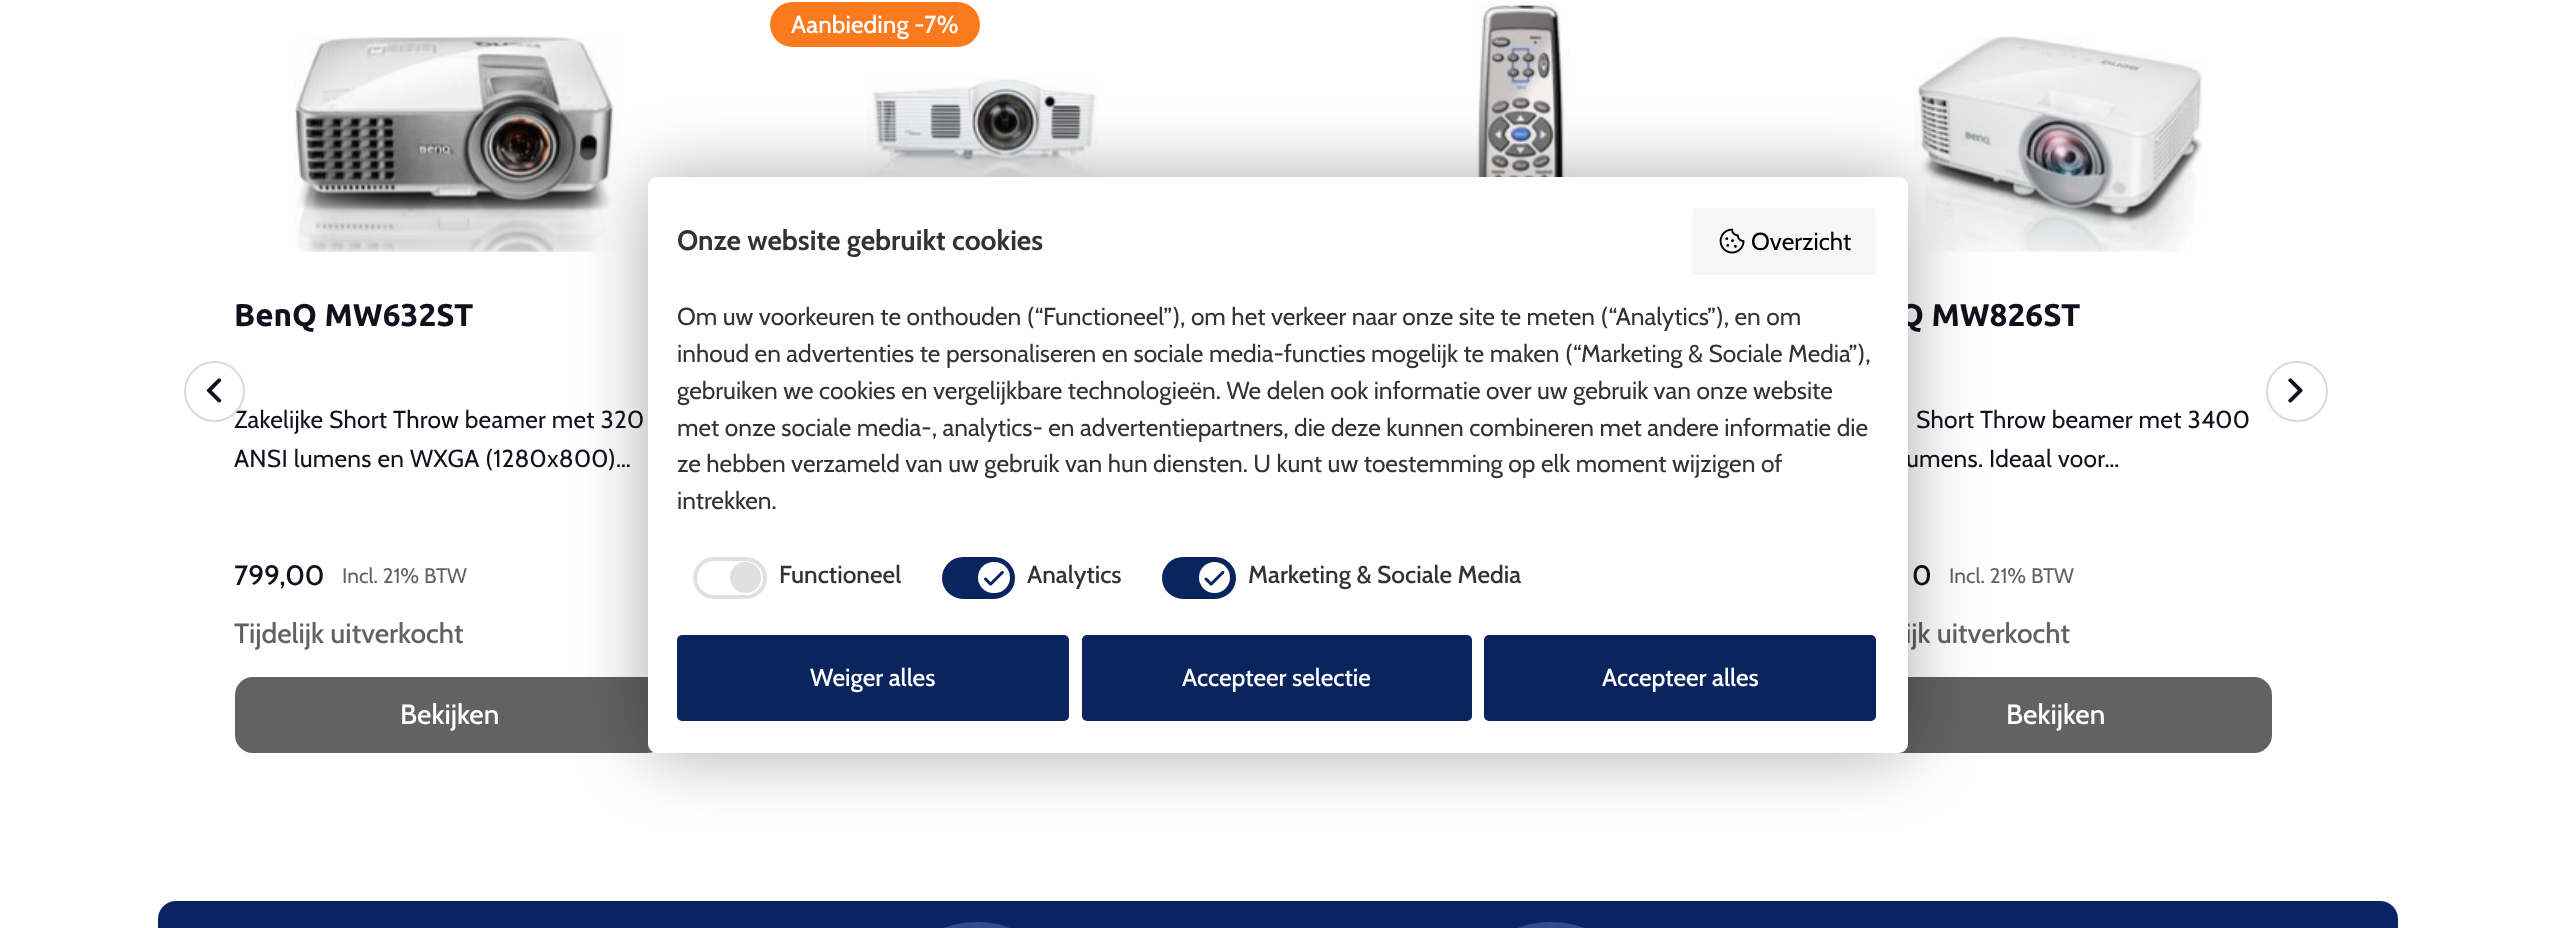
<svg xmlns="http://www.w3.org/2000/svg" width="2552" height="928">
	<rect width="100%" height="100%" fill="#FFFFFF" />
	<rect x="770" y="2" width="210" height="45" rx="22.5" fill="#FC7A1E" />
	<text x="791" y="33" font-family="Cabin" font-size="24.5" font-weight="500" fill="#FFFFFF">Aanbieding -7%</text>
	<image x="867" y="78" width="230" height="99" href="assets/img1.png" />
	<image x="1476" y="1" width="94" height="176" href="assets/img2.png" />
	<image x="294" y="36" width="325" height="216" href="assets/img3.png" />
	<text x="234" y="326" font-family="Ubuntu" font-size="31.5" font-weight="700" fill="#13101E">BenQ MW632ST</text>
	<g font-family="Cabin" font-size="24.5" letter-spacing="0.25" fill="#13101E">
		<text x="234" y="428">Zakelijke Short Throw beamer met 320</text>
		<text x="234" y="467">ANSI lumens en WXGA (1280x800)…</text>
	</g>
	<text x="234" y="585" font-family="Cabin" font-size="28" font-weight="500" fill="#13101E">799,00</text>
	<text x="342" y="583" font-family="Cabin" font-size="21" fill="#626262">Incl. 21% BTW</text>
	<text x="234" y="643" font-family="Cabin" font-size="28" font-weight="500" fill="#626262">Tijdelijk uitverkocht</text>
	<rect x="236" y="678" width="428" height="74" rx="17" fill="#626262" stroke="#626262" stroke-width="2" />
	<text x="400" y="724" font-family="Cabin" font-size="28" font-weight="500" fill="#FFFFFF">Bekijken</text>
	<image x="1914" y="35" width="289" height="217" href="assets/img4.png" />
	<text x="1899" y="326" font-family="Ubuntu" font-size="31.5" font-weight="700" fill="#13101E">Q MW826ST</text>
	<g font-family="Cabin" font-size="24.5" letter-spacing="0.25" fill="#13101E">
		<text x="1916" y="428">Short Throw beamer met 3400</text>
		<text x="1906" y="467">umens. Ideaal voor…</text>
	</g>
	<text x="1912" y="585" font-family="Cabin" font-size="28" font-weight="500" fill="#13101E">0</text>
	<text x="1949" y="583" font-family="Cabin" font-size="21" fill="#626262">Incl. 21% BTW</text>
	<text x="1905" y="643" font-family="Cabin" font-size="28" font-weight="500" fill="#626262">ijk uitverkocht</text>
	<rect x="1842" y="678" width="429" height="74" rx="17" fill="#626262" stroke="#626262" stroke-width="2" />
	<text x="2006" y="724" font-family="Cabin" font-size="28" font-weight="500" fill="#FFFFFF">Bekijken</text>
	<circle cx="214.5" cy="391.5" r="29.5" fill="none" stroke="#D9D9D9" stroke-width="2" />
	<image x="206" y="378" width="16" height="25" href="assets/img5.png" />
	<rect x="2267" y="362" width="60" height="59" rx="29.5" fill="none" stroke="#D9D9D9" stroke-width="2" />
	<image x="2288" y="378" width="15" height="25" href="assets/img6.png" />
	<rect x="648" y="177" width="1260" height="576" rx="9" fill="#000000" fill-opacity="0.33" filter="blur(35px)" />
	<rect x="648" y="177" width="1260" height="576" rx="9" fill="#FFFFFF" />
	<text x="677" y="250" font-family="Cabin" font-size="28" font-weight="700" fill="#333333">Onze website gebruikt cookies</text>
	<rect x="1692" y="208" width="184" height="67" rx="5" fill="#F6F6F6" />
	<image x="1719" y="228" width="26" height="26" href="assets/img7.png" />
	<text x="1751" y="250" font-family="Cabin" font-size="24.5" fill="#000000">Overzicht</text>
	<g font-family="Cabin" font-size="24.5" fill="#333333">
		<text x="677" y="325">Om uw voorkeuren te onthouden (“Functioneel”), om het verkeer naar onze site te meten (“Analytics”), en om</text>
		<text x="677" y="362">inhoud en advertenties te personaliseren en sociale media-functies mogelijk te maken (“Marketing &amp; Sociale Media”),</text>
		<text x="677" y="399">gebruiken we cookies en vergelijkbare technologieën. We delen ook informatie over uw gebruik van onze website</text>
		<text x="677" y="436">met onze sociale media-, analytics- en advertentiepartners, die deze kunnen combineren met andere informatie die</text>
		<text x="677" y="472">ze hebben verzameld van uw gebruik van hun diensten. U kunt uw toestemming op elk moment wijzigen of</text>
		<text x="677" y="509">intrekken.</text>
	</g>
	<rect x="695" y="559" width="70" height="38" rx="19" fill="none" stroke="#E0E0E0" stroke-width="4" />
	<circle cx="745.5" cy="577.5" r="15.5" fill="#E0E0E0" />
	<text x="779" y="583" font-family="Cabin" font-size="24.5" font-weight="500" fill="#333333">Functioneel</text>
	<rect x="944" y="559" width="69" height="38" rx="19" fill="#0A245E" stroke="#0A245E" stroke-width="4" />
	<rect x="978" y="562" width="32" height="31" rx="15.5" fill="#FFFFFF" />
	<image x="984" y="570" width="20" height="16" href="assets/img8.png" />
	<text x="1027" y="583" font-family="Cabin" font-size="24.5" font-weight="500" fill="#333333">Analytics</text>
	<rect x="1164" y="559" width="70" height="38" rx="19" fill="#0A245E" stroke="#0A245E" stroke-width="4" />
	<circle cx="1214.5" cy="577.5" r="15.5" fill="#FFFFFF" />
	<image x="1204" y="570" width="21" height="16" href="assets/img9.png" />
	<text x="1248" y="583" font-family="Cabin" font-size="24.5" font-weight="500" fill="#333333">Marketing &amp; Sociale Media</text>
	<rect x="677" y="635" width="392" height="86" rx="5" fill="#0A245E" />
	<text x="810" y="686" font-family="Cabin" font-size="24.5" font-weight="500" fill="#FFFFFF">Weiger alles</text>
	<rect x="1082" y="635" width="390" height="86" rx="5" fill="#0A245E" />
	<text x="1182" y="686" font-family="Cabin" font-size="24.5" font-weight="500" fill="#FFFFFF">Accepteer selectie</text>
	<rect x="1484" y="635" width="392" height="86" rx="5" fill="#0A245E" />
	<text x="1602" y="686" font-family="Cabin" font-size="24.5" font-weight="500" fill="#FFFFFF">Accepteer alles</text>
	<rect x="158" y="901" width="2240" height="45" rx="18" fill="#0A2463" />
	<rect x="921" y="922" width="112" height="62" rx="56" fill="#324C8B" />
	<rect x="1495" y="922" width="112" height="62" rx="56" fill="#324C8B" />
</svg>
